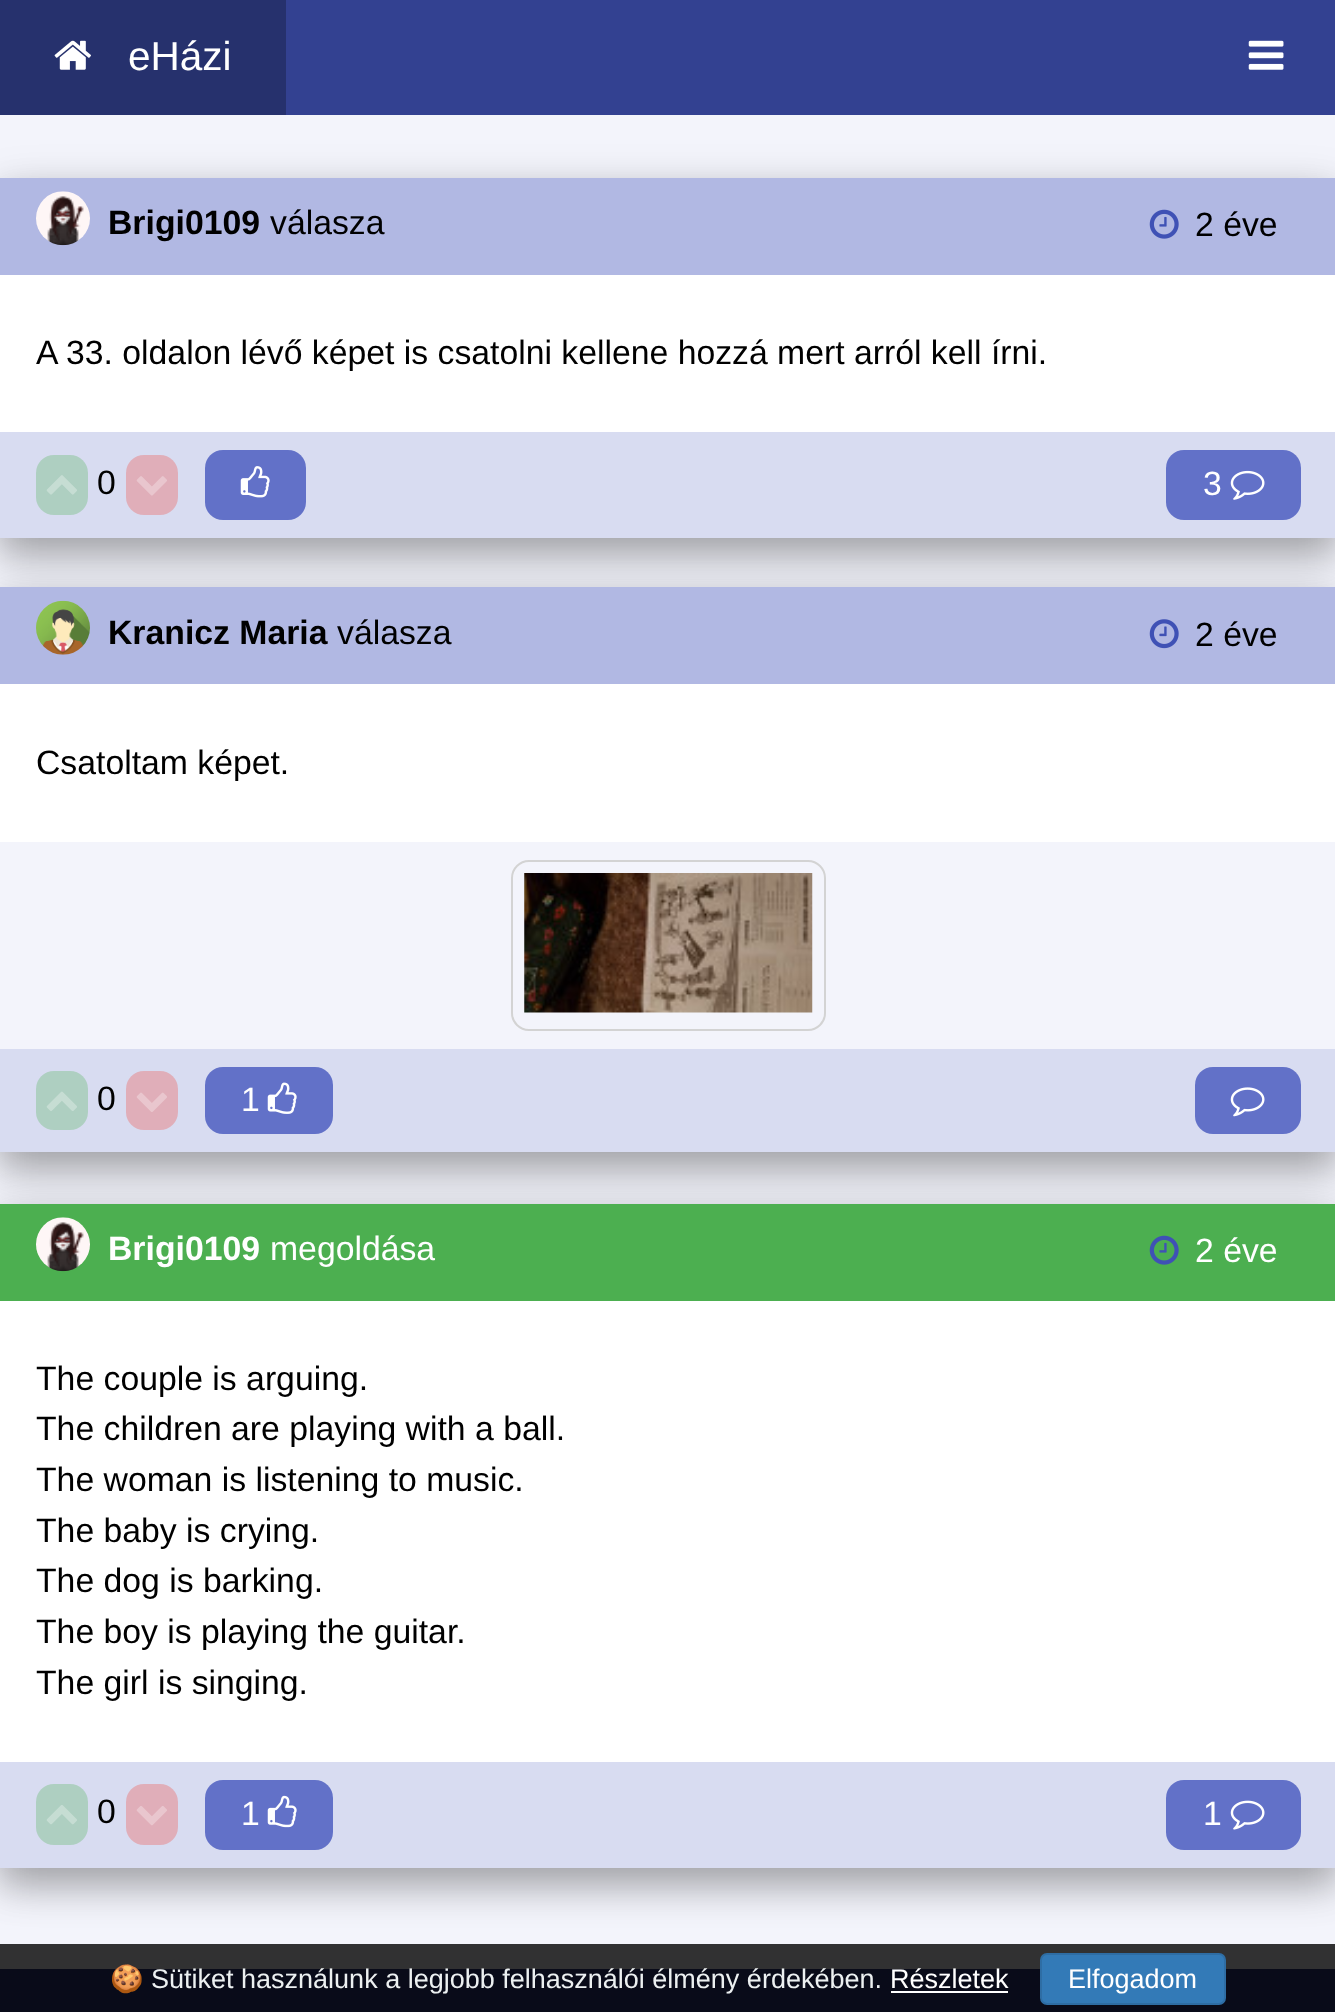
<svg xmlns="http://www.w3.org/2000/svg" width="1335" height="2012">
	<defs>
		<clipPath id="clip1"><path d="M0 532H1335V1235H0ZM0 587H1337V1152H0Z" clip-rule="evenodd" /></clipPath>
		<clipPath id="clip2"><path d="M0 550H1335V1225H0ZM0 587H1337V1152H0Z" clip-rule="evenodd" /></clipPath>
	</defs>
	<rect width="100%" height="100%" fill="#F3F4FB" />
	<rect x="0" y="1944" width="1335" height="25" fill="#313132" />
	<rect x="286" y="0" width="1049" height="115" fill="#334191" />
	<rect x="0" y="0" width="286" height="115" fill="#26316D" />
	<image x="54" y="40" width="37" height="30" href="assets/img1.png" />
	<text x="128" y="70" font-family="Liberation Sans" font-size="40.5" fill="#FFFFFF">eHázi</text>
	<image x="1248" y="40" width="36" height="30" href="assets/img2.png" />
	<rect x="0" y="191" width="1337" height="360" fill="#000000" fill-opacity="0.19" filter="blur(22.5px)" />
	<rect x="0" y="196" width="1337" height="360" fill="#000000" fill-opacity="0.2" filter="blur(18px)" />
	<rect x="0" y="178" width="1335" height="97" fill="#B1B8E3" />
	<image x="36" y="191" width="54" height="55" href="assets/img3.png" />
	<text x="108" y="234" font-family="Liberation Sans" font-size="33.75" font-weight="700" fill="#000000">Brigi0109</text>
	<text x="270" y="234" font-family="Liberation Sans" font-size="33.75" fill="#000000">válasza</text>
	<image x="1149" y="209" width="30" height="30" href="assets/img4.png" />
	<text x="1195" y="236" font-family="Liberation Sans" font-size="33.75" fill="#000000">2 éve</text>
	<rect x="0" y="275" width="1335" height="157" fill="#FFFFFF" />
	<text x="36" y="364" font-family="Liberation Sans" font-size="33.75" fill="#000000">A 33. oldalon lévő képet is csatolni kellene hozzá mert arról kell írni.</text>
	<rect x="0" y="432" width="1335" height="106" fill="#D8DCF1" />
	<rect x="36" y="455" width="52" height="60" rx="18" fill="#AECFC1" />
	<image x="46" y="475" width="31" height="20" href="assets/img5.png" />
	<text x="97" y="494" font-family="Liberation Sans" font-size="33.75" fill="#000000">0</text>
	<rect x="126" y="455" width="52" height="60" rx="18" fill="#E0AEB9" />
	<image x="136" y="476" width="31" height="20" href="assets/img6.png" />
	<rect x="205" y="450" width="101" height="70" rx="18" fill="#6271C8" />
	<image x="240" y="466" width="30" height="32" href="assets/img7.png" />
	<rect x="1166" y="450" width="135" height="70" rx="18" fill="#6271C8" />
	<text x="1203" y="495" font-family="Liberation Sans" font-size="33.75" fill="#FFFFFF">3</text>
	<image x="1230" y="470" width="35" height="30" href="assets/img8.png" />
	<g clip-path="url(#clip1)">
		<rect x="0" y="601" width="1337" height="565" fill="#000000" fill-opacity="0.19" filter="blur(22.5px)" />
	</g>
	<g clip-path="url(#clip2)">
		<rect x="0" y="605" width="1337" height="565" fill="#000000" fill-opacity="0.2" filter="blur(18px)" />
	</g>
	<rect x="0" y="587" width="1335" height="97" fill="#B1B8E3" />
	<image x="36" y="600" width="54" height="55" href="assets/img9.png" />
	<text x="108" y="644" font-family="Liberation Sans" font-size="33.75" font-weight="700" fill="#000000">Kranicz Maria</text>
	<text x="337" y="644" font-family="Liberation Sans" font-size="33.75" fill="#000000">válasza</text>
	<image x="1149" y="619" width="30" height="30" href="assets/img10.png" />
	<text x="1195" y="646" font-family="Liberation Sans" font-size="33.75" fill="#000000">2 éve</text>
	<rect x="0" y="684" width="1335" height="158" fill="#FFFFFF" />
	<text x="36" y="774" font-family="Liberation Sans" font-size="33.75" fill="#000000">Csatoltam képet.</text>
	<rect x="512" y="861" width="313" height="169" rx="17" fill="none" stroke="#D3D3D3" stroke-width="2" />
	<image x="524" y="873" width="289" height="140" href="assets/img11.png" />
	<rect x="0" y="1049" width="1335" height="103" fill="#D8DCF1" />
	<rect x="36" y="1071" width="52" height="59" rx="18" fill="#AECFC1" />
	<image x="46" y="1091" width="31" height="20" href="assets/img12.png" />
	<text x="97" y="1110" font-family="Liberation Sans" font-size="33.75" fill="#000000">0</text>
	<rect x="126" y="1071" width="52" height="59" rx="18" fill="#E0AEB9" />
	<image x="136" y="1092" width="31" height="20" href="assets/img13.png" />
	<rect x="205" y="1067" width="128" height="67" rx="18" fill="#6271C8" />
	<text x="241" y="1111" font-family="Liberation Sans" font-size="33.75" fill="#FFFFFF">1</text>
	<image x="267" y="1082" width="30" height="32" href="assets/img14.png" />
	<rect x="1195" y="1067" width="106" height="67" rx="18" fill="#6271C8" />
	<image x="1230" y="1087" width="35" height="30" href="assets/img15.png" />
	<rect x="0" y="1217" width="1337" height="664" fill="#000000" fill-opacity="0.19" filter="blur(22.5px)" />
	<rect x="0" y="1222" width="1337" height="664" fill="#000000" fill-opacity="0.2" filter="blur(18px)" />
	<rect x="0" y="1204" width="1335" height="97" fill="#4CAF50" />
	<image x="36" y="1217" width="54" height="55" href="assets/img16.png" />
	<text x="108" y="1260" font-family="Liberation Sans" font-size="33.75" font-weight="700" fill="#FFFFFF">Brigi0109</text>
	<text x="270" y="1260" font-family="Liberation Sans" font-size="33.75" fill="#FFFFFF">megoldása</text>
	<image x="1149" y="1235" width="30" height="30" href="assets/img17.png" />
	<text x="1195" y="1262" font-family="Liberation Sans" font-size="33.75" fill="#FFFFFF">2 éve</text>
	<rect x="0" y="1301" width="1335" height="461" fill="#FFFFFF" />
	<g font-family="Liberation Sans" font-size="33.75" fill="#000000">
		<text x="36" y="1390">The couple is arguing.</text>
		<text x="36" y="1440">The children are playing with a ball.</text>
		<text x="36" y="1491">The woman is listening to music.</text>
		<text x="36" y="1542">The baby is crying.</text>
		<text x="36" y="1592">The dog is barking.</text>
		<text x="36" y="1643">The boy is playing the guitar.</text>
		<text x="36" y="1694">The girl is singing.</text>
	</g>
	<rect x="0" y="1762" width="1335" height="106" fill="#D8DCF1" />
	<rect x="36" y="1784" width="52" height="61" rx="18" fill="#AECFC1" />
	<image x="46" y="1805" width="31" height="20" href="assets/img18.png" />
	<text x="97" y="1823" font-family="Liberation Sans" font-size="33.75" fill="#000000">0</text>
	<rect x="126" y="1784" width="52" height="61" rx="18" fill="#E0AEB9" />
	<image x="136" y="1806" width="31" height="20" href="assets/img19.png" />
	<rect x="205" y="1780" width="128" height="70" rx="18" fill="#6271C8" />
	<text x="241" y="1825" font-family="Liberation Sans" font-size="33.75" fill="#FFFFFF">1</text>
	<image x="267" y="1795" width="30" height="33" href="assets/img20.png" />
	<rect x="1166" y="1780" width="135" height="70" rx="18" fill="#6271C8" />
	<text x="1203" y="1825" font-family="Liberation Sans" font-size="33.75" fill="#FFFFFF">1</text>
	<image x="1230" y="1800" width="35" height="30" href="assets/img21.png" />
	<rect x="0" y="1969" width="1335" height="43" fill="#090B19" />
	<text x="110" y="1988" font-family="Noto Color Emoji" font-size="27" fill="#ECF0F1">🍪</text>
	<text x="151" y="1988" font-family="Liberation Sans" font-size="27" fill="#ECF0F1">Sütiket használunk a legjobb felhasználói élmény érdekében.</text>
	<text x="890" y="1988" font-family="Liberation Sans" font-size="27" fill="#FFFFFF">Részletek</text>
	<rect x="891" y="1991" width="117" height="2" fill="#FFFFFF" />
	<rect x="1041" y="1954" width="184" height="50" rx="6" fill="#337AB7" stroke="#2E6DA4" stroke-width="2" />
	<text x="1068" y="1988" font-family="Liberation Sans" font-size="27" fill="#FFFFFF">Elfogadom</text>
</svg>
